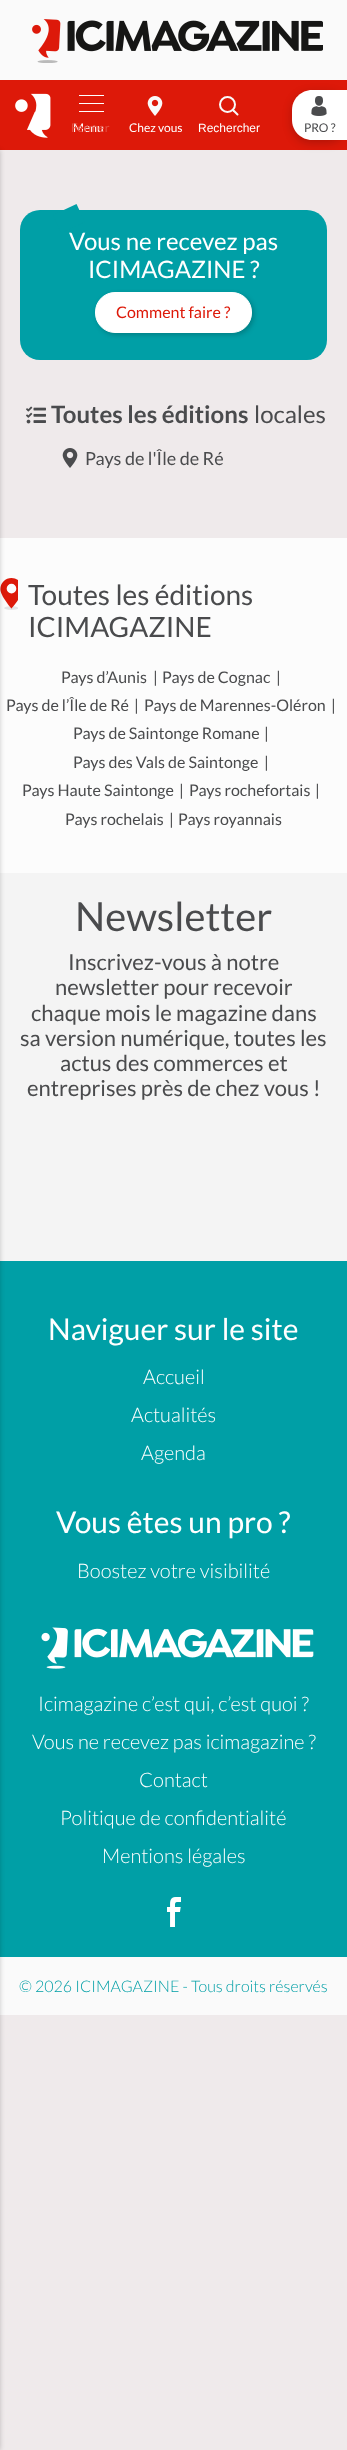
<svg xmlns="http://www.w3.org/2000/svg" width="347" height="2450">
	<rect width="100%" height="100%" fill="#EFEAEB" />
	<rect x="0" y="0" width="347" height="80" fill="#FAFAFA" />
	<image x="32" y="19" width="291" height="44" href="assets/img1.png" />
	<rect x="0" y="80" width="347" height="70" fill="#DD1909" />
	<image x="15" y="93" width="36" height="45" href="assets/img2.png" />
	<rect x="79" y="95" width="25" height="1" fill="#FFFFFF" />
	<rect x="79" y="103" width="25" height="1" fill="#FFFFFF" />
	<rect x="79" y="111" width="25" height="1" fill="#FFFFFF" />
	<text x="73" y="132" font-family="Lato" font-size="12" fill="#FFFFFF">Menu</text>
	<text x="71" y="132" font-family="Lato" font-size="12" fill="#E55043">Fermer</text>
	<image x="147" y="96" width="16" height="20" href="assets/img3.png" />
	<text x="129" y="132" font-family="Lato" font-size="12" fill="#FFFFFF">Chez vous</text>
	<circle cx="227.5" cy="104.5" r="7.5" fill="none" stroke="#FAFAFA" stroke-width="2" />
	<path d="M233.5 110.5L237.5 114.5" fill="none" stroke="#FAFAFA" stroke-width="2" stroke-linecap="round" />
	<text x="198" y="132" font-family="Liberation Sans" font-size="12" fill="#FFFFFF">Rechercher</text>
	<rect x="0" y="538" width="347" height="335" fill="#FCFCFC" />
	<image x="0" y="578" width="18" height="32" href="assets/img7.png" />
	<rect x="0" y="873" width="347" height="388" fill="#F4F4F4" />
	<rect x="0" y="1261" width="347" height="696" fill="#009FA6" />
	<rect x="0" y="1957" width="347" height="58" fill="#FAFAFA" />
	<rect x="-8" y="150" width="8" height="2300" fill="#000000" fill-opacity="0.2" filter="blur(2.5px)" />
	<rect x="292" y="93" width="55" height="50" rx="20" fill="#000000" fill-opacity="0.2" filter="blur(5px)" />
	<path d="M312 90H347V140H312C301 140 292 131 292 120V110C292 99 301 90 312 90Z" fill="#FFFFFF" />
	<image x="311" y="96" width="16" height="20" href="assets/img4.png" />
	<text x="304" y="132" font-family="Lato" font-size="12" fill="#4A4B4D">PRO ?</text>
	<rect x="20" y="210" width="307" height="150" rx="20" fill="#009FA6" />
	<path d="M53 215L61 233L85 222L76.5 204Z" fill="#009FA6" />
	<g font-family="Lato" font-size="24" fill="#FFFFFF">
		<text x="69" y="250">Vous ne recevez pas</text>
		<text x="88" y="278">ICIMAGAZINE ?</text>
	</g>
	<rect x="97" y="294" width="157" height="41" rx="20" fill="#000000" fill-opacity="0.2" filter="blur(2.5px)" />
	<rect x="95.5" y="292.5" width="156" height="40" rx="19.5" fill="#FFFFFF" stroke="#FFFFFF" />
	<text x="116" y="318" font-family="Lato" font-size="16" fill="#DD1909">Comment faire ?</text>
	<image x="26" y="406" width="20" height="18" href="assets/img5.png" />
	<text x="51" y="423" font-family="Lato" font-size="24" font-weight="700" fill="#4A4B4D">Toutes les éditions</text>
	<text x="254" y="423" font-family="Lato" font-size="24" fill="#4A4B4D">locales</text>
	<image x="62" y="448" width="16" height="20" href="assets/img6.png" />
	<text x="85" y="465" font-family="Lato" font-size="18" fill="#4A4B4D">Pays de l'Île de Ré</text>
	<g font-family="Lato" font-size="28" fill="#4A4B4D">
		<text x="28" y="605">Toutes les éditions</text>
		<text x="28" y="637">ICIMAGAZINE</text>
	</g>
	<g font-family="Lato" font-size="16" fill="#4A4B4D">
		<text x="61" y="683">Pays d’Aunis</text>
		<text x="153" y="683">|</text>
		<text x="162" y="683">Pays de Cognac</text>
		<text x="276" y="683">|</text>
		<text x="6" y="711">Pays de l’Île de Ré</text>
		<text x="134" y="711">|</text>
		<text x="144" y="711">Pays de Marennes-Oléron</text>
		<text x="331" y="711">|</text>
		<text x="73" y="739">Pays de Saintonge Romane</text>
		<text x="264" y="739">|</text>
		<text x="73" y="768">Pays des Vals de Saintonge</text>
		<text x="264" y="768">|</text>
		<text x="22" y="796">Pays Haute Saintonge</text>
		<text x="179" y="796">|</text>
		<text x="189" y="796">Pays rochefortais</text>
		<text x="315" y="796">|</text>
		<text x="65" y="825">Pays rochelais</text>
		<text x="169" y="825">|</text>
		<text x="178" y="825">Pays royannais</text>
	</g>
	<text x="75" y="931" font-family="Lato" font-size="40" fill="#4A4B4D">Newsletter</text>
	<g font-family="Lato" font-size="22" fill="#4A4B4D">
		<text x="68" y="970">Inscrivez-vous à notre</text>
		<text x="55" y="995">newsletter pour recevoir</text>
		<text x="31" y="1021">chaque mois le magazine dans</text>
		<text x="20" y="1046">sa version numérique, toutes les</text>
		<text x="60" y="1071">actus des commerces et</text>
		<text x="27" y="1096">entreprises près de chez vous !</text>
	</g>
	<text x="48" y="1340" font-family="Lato" font-size="30" fill="#FFFFFF">Naviguer sur le site</text>
	<g font-family="Lato" font-size="20" font-weight="300" fill="#FFFFFF">
		<text x="143" y="1384">Accueil</text>
		<text x="131" y="1422">Actualités</text>
		<text x="141" y="1460">Agenda</text>
	</g>
	<text x="56" y="1533" font-family="Lato" font-size="30" fill="#FFFFFF">Vous êtes un pro ?</text>
	<text x="77" y="1578" font-family="Lato" font-size="20" font-weight="300" fill="#FFFFFF">Boostez votre visibilité</text>
	<image x="41" y="1627" width="273" height="42" href="assets/img8.png" />
	<g font-family="Lato" font-size="20" font-weight="300" fill="#FFFFFF">
		<text x="38" y="1711">Icimagazine c’est qui, c’est quoi ?</text>
		<text x="32" y="1749">Vous ne recevez pas icimagazine ?</text>
		<text x="139" y="1787">Contact</text>
		<text x="60" y="1825">Politique de confidentialité</text>
		<text x="102" y="1863">Mentions légales</text>
	</g>
	<image x="167" y="1897" width="14" height="30" href="assets/img9.png" />
	<text x="19" y="1992" font-family="Lato" font-size="16" font-weight="300" fill="#009FA6">© 2026 ICIMAGAZINE - Tous droits réservés</text>
</svg>
